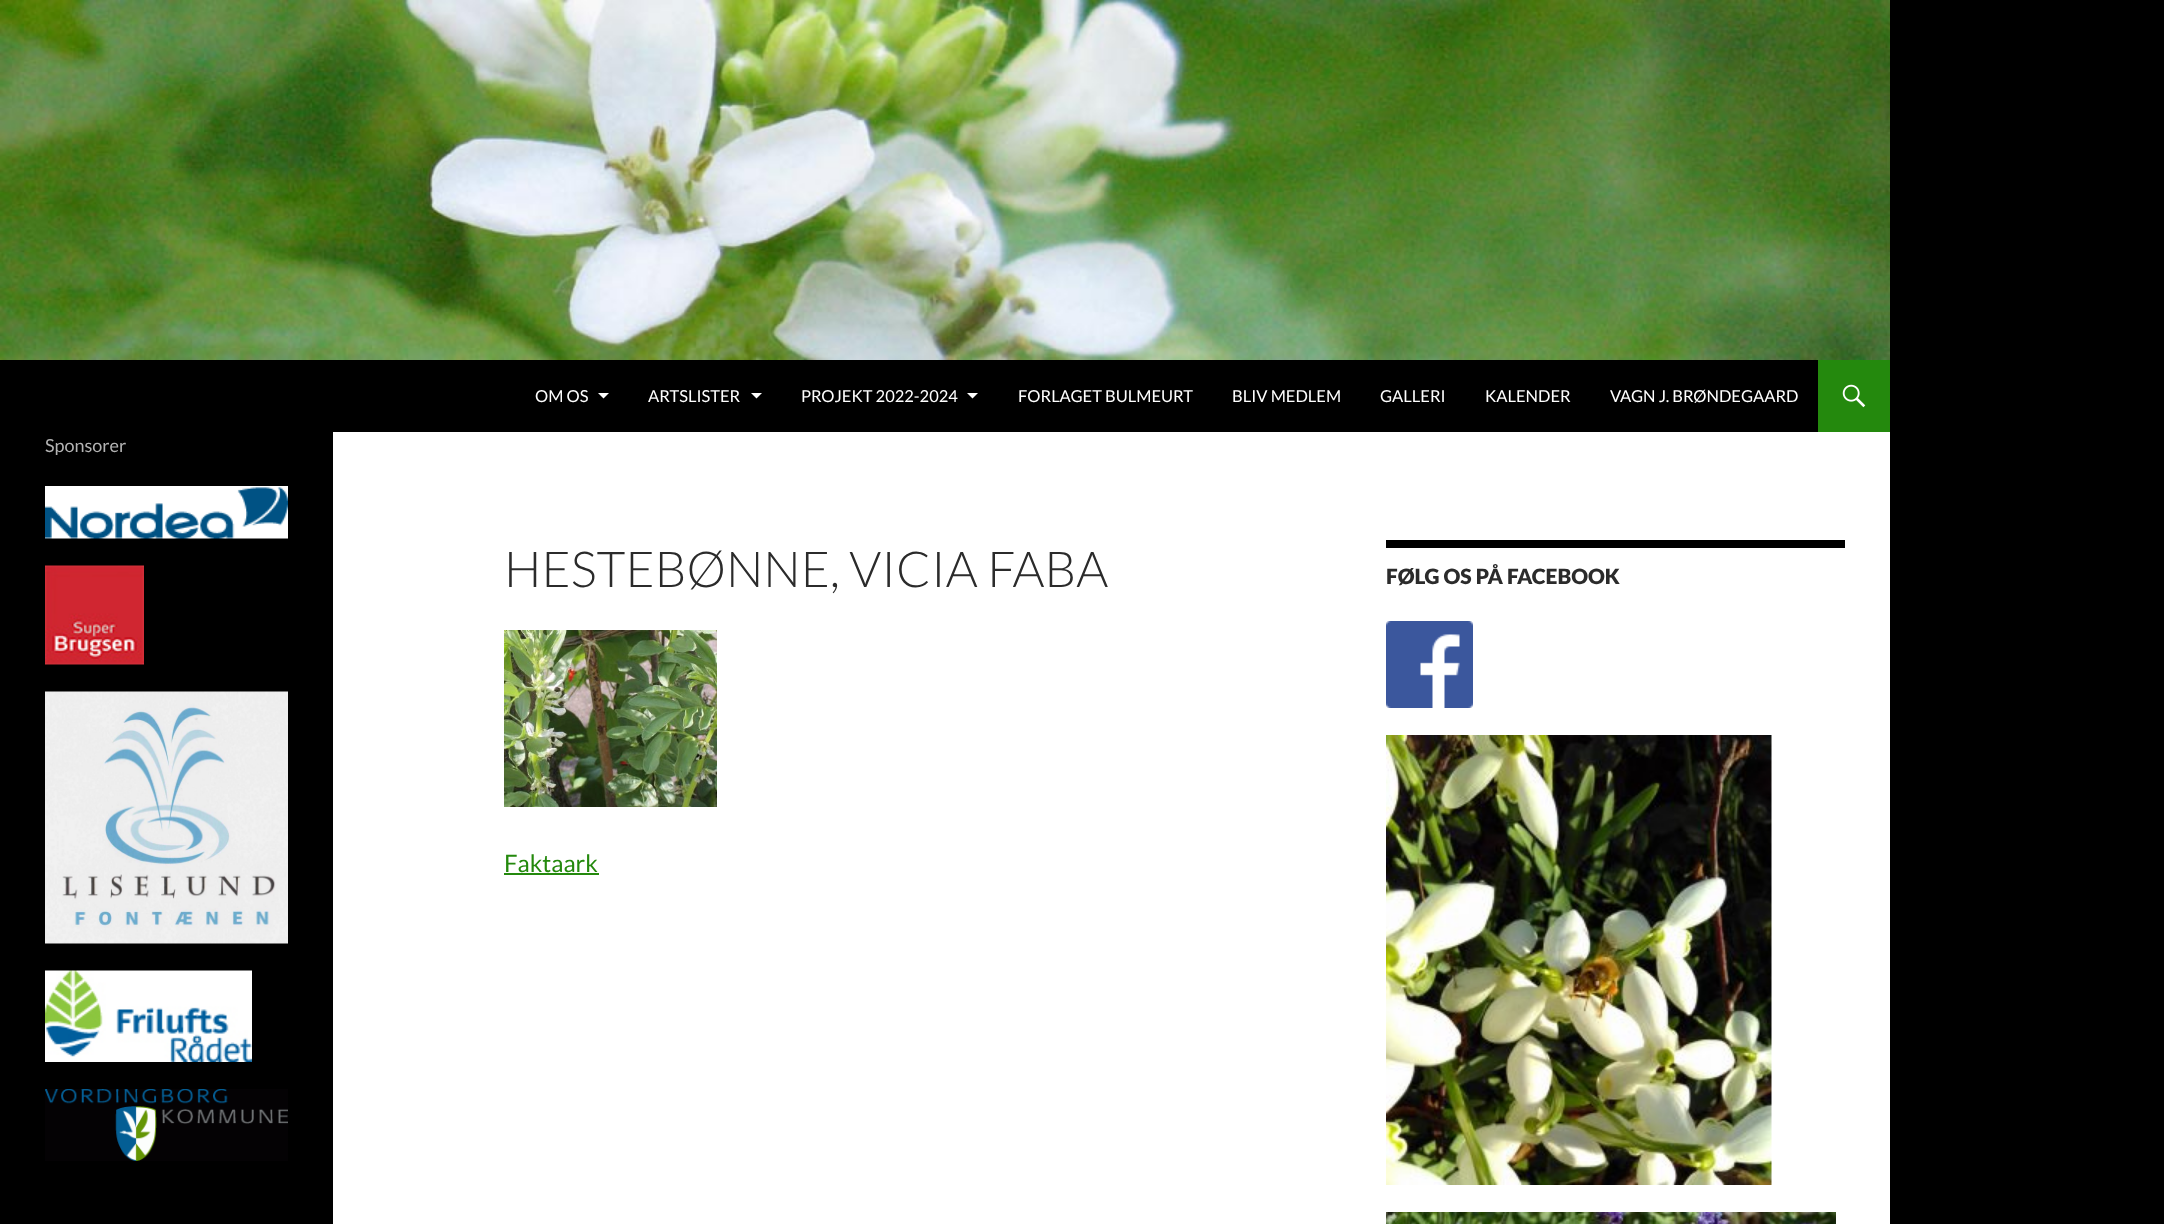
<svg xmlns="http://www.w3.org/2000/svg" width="2164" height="1224">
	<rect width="100%" height="100%" fill="#000000" />
	<rect x="333" y="432" width="1557" height="792" fill="#FFFFFF" />
	<image x="0" y="0" width="1890" height="360" href="assets/img1.png" />
	<text x="535" y="402" font-family="Lato" font-size="16.5" fill="#FFFFFF">OM OS</text>
	<path d="M598 393L603.5 398.5L609 393Z" fill="#FFFFFF" />
	<text x="648" y="402" font-family="Lato" font-size="16.5" fill="#FFFFFF">ARTSLISTER</text>
	<path d="M751 393L756.5 398.5L762 393Z" fill="#FFFFFF" />
	<text x="801" y="402" font-family="Lato" font-size="16.5" fill="#FFFFFF">PROJEKT 2022-2024</text>
	<path d="M967 393L972.5 398.5L978 393Z" fill="#FFFFFF" />
	<g font-family="Lato" font-size="16.5" fill="#FFFFFF">
		<text x="1018" y="402">FORLAGET BULMEURT</text>
		<text x="1232" y="402">BLIV MEDLEM</text>
		<text x="1380" y="402">GALLERI</text>
		<text x="1485" y="402">KALENDER</text>
		<text x="1610" y="402">VAGN J. BRØNDEGAARD</text>
	</g>
	<rect x="1818" y="360" width="72" height="72" fill="#24890D" />
	<image x="1842" y="384" width="24" height="24" href="assets/img2.png" />
	<text x="45" y="452" font-family="Lato" font-size="18" fill="#B3B3B3">Sponsorer</text>
	<image x="45" y="486" width="243" height="53" href="assets/img3.png" />
	<image x="45" y="565" width="99" height="100" href="assets/img4.png" />
	<image x="45" y="691" width="243" height="253" href="assets/img5.png" />
	<image x="45" y="970" width="207" height="92" href="assets/img6.png" />
	<image x="45" y="1089" width="243" height="72" href="assets/img7.png" />
	<text x="504" y="587" font-family="Lato" font-size="49.5" font-weight="300" fill="#2B2B2B">HESTEBØNNE, VICIA FABA</text>
	<image x="504" y="630" width="213" height="177" href="assets/img8.png" />
	<text x="504" y="872" font-family="Lato" font-size="24" fill="#24890D">Faktaark</text>
	<rect x="504" y="873" width="95" height="2" fill="#24890D" />
	<rect x="1386" y="540" width="459" height="8" fill="#000000" />
	<text x="1386" y="584" font-family="Lato" font-size="21" font-weight="900" fill="#2B2B2B">FØLG OS PÅ FACEBOOK</text>
	<image x="1386" y="621" width="87" height="87" href="assets/img9.png" />
	<image x="1386" y="735" width="386" height="450" href="assets/img10.png" />
	<image x="1386" y="1212" width="450" height="12" href="assets/img11.png" />
</svg>
